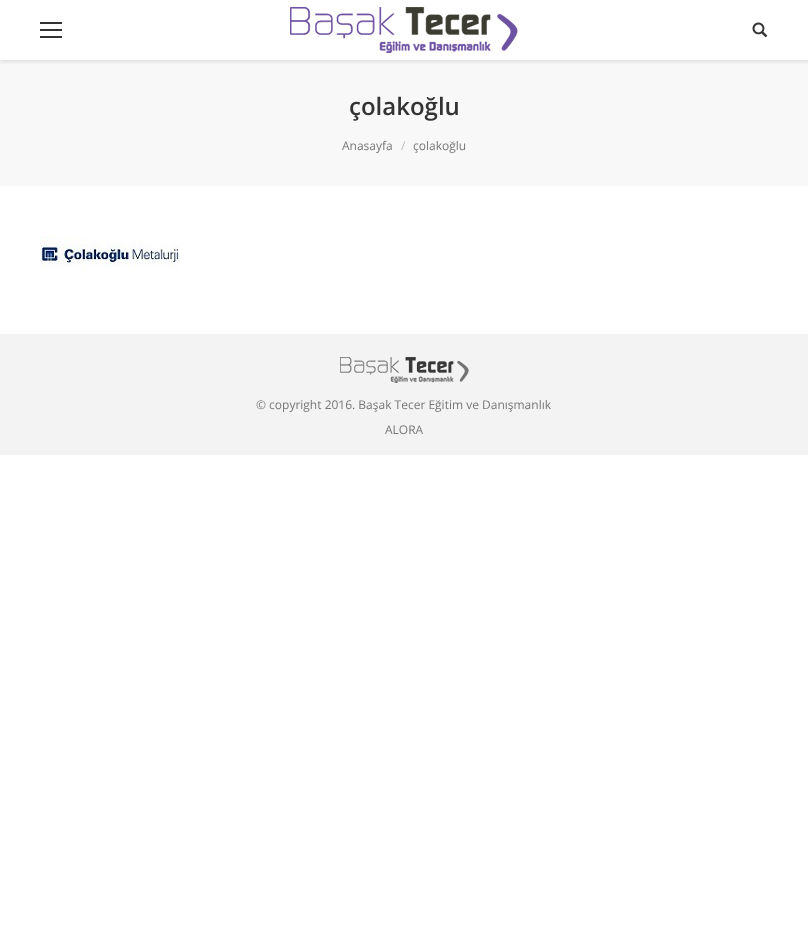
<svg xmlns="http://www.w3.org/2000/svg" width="808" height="951">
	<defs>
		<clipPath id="clip1"><rect x="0" y="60" width="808" height="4" /></clipPath>
	</defs>
	<rect width="100%" height="100%" fill="#FFFFFF" />
	<rect x="0" y="60" width="808" height="126" fill="#F8F8F8" />
	<g clip-path="url(#clip1)">
		<rect x="0" y="0" width="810" height="62" fill="#000000" fill-opacity="0.1" filter="blur(2px)" />
	</g>
	<rect x="40" y="29" width="22" height="2" fill="#333333" />
	<rect x="40" y="22" width="22" height="2" fill="#333333" />
	<rect x="40" y="36" width="22" height="2" fill="#333333" />
	<image x="290" y="7" width="228" height="46" href="assets/img1.png" />
	<image x="752" y="22" width="16" height="16" href="assets/img2.png" />
	<text x="349" y="115" font-family="Open Sans" font-size="24" font-weight="600" fill="#333333">çolakoğlu</text>
	<text x="342" y="150" font-family="Open Sans" font-size="12" fill="#777777">Anasayfa</text>
	<text x="401" y="150" font-family="Open Sans" font-size="12" fill="#B8B8B8">/</text>
	<text x="413" y="150" font-family="Open Sans" font-size="12" fill="#777777">çolakoğlu</text>
	<image x="40" y="236" width="140" height="32" href="assets/img3.png" />
	<rect x="0" y="334" width="808" height="121" fill="#F3F3F3" />
	<image x="340" y="357" width="129" height="26" href="assets/img4.png" />
	<g font-family="Open Sans" font-size="12" fill="#777777">
		<text x="256" y="409">© copyright 2016. Başak Tecer Eğitim ve Danışmanlık</text>
		<text x="385" y="434">ALORA</text>
	</g>
</svg>
